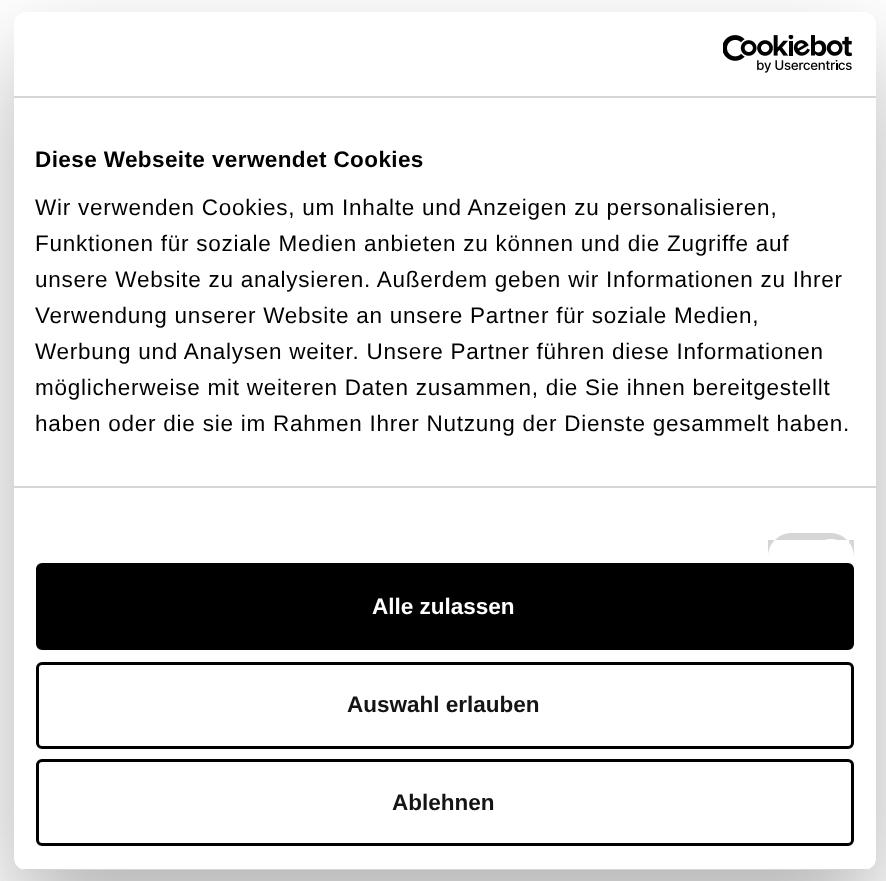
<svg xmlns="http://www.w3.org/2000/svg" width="886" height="881">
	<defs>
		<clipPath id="clip1"><rect x="14" y="12" width="862" height="858" rx="12" /></clipPath>
	</defs>
	<rect width="100%" height="100%" fill="#FFFFFF" />
	<rect x="14" y="60" width="862" height="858" rx="12" fill="#000000" fill-opacity="0.3" filter="blur(51px)" />
	<rect x="14" y="12" width="862" height="858" rx="12" fill="#FFFFFF" />
	<rect x="14" y="96" width="862" height="2" fill="#D6D6D6" />
	<image x="723" y="35" width="130" height="38" href="assets/img1.png" />
	<rect x="14" y="486" width="862" height="2" fill="#D6D6D6" />
	<text x="35" y="167" font-family="Liberation Sans" font-size="22.5" font-weight="700" letter-spacing="0.4" fill="#000000">Diese Webseite verwendet Cookies</text>
	<g font-family="Liberation Sans" font-size="22.5" letter-spacing="0.75" fill="#000000">
		<text x="35" y="215">Wir verwenden Cookies, um Inhalte und Anzeigen zu personalisieren,</text>
		<text x="35" y="251">Funktionen für soziale Medien anbieten zu können und die Zugriffe auf</text>
		<text x="35" y="287">unsere Website zu analysieren. Außerdem geben wir Informationen zu Ihrer</text>
		<text x="35" y="323">Verwendung unserer Website an unsere Partner für soziale Medien,</text>
		<text x="35" y="359">Werbung und Analysen weiter. Unsere Partner führen diese Informationen</text>
		<text x="35" y="395">möglicherweise mit weiteren Daten zusammen, die Sie ihnen bereitgestellt</text>
		<text x="35" y="431">haben oder die sie im Rahmen Ihrer Nutzung der Dienste gesammelt haben.</text>
	</g>
	<path d="M792 533H830C843.5 533 854 543.5 854 557V540H768V557C768 543.5 778.5 533 792 533Z" fill="#D6D6D6" />
	<path d="M831 539C841 539 849 547 849 557V540H813V557C813 547 821 539 831 539Z" fill="#FFFFFF" />
	<g clip-path="url(#clip1)">
		<rect x="14" y="869" width="862" height="1" fill="#D6D6D6" />
	</g>
	<rect x="37.5" y="564.5" width="815" height="84" rx="4.5" fill="#000000" stroke="#000000" stroke-width="3" />
	<text x="372" y="614" font-family="Liberation Sans" font-size="22.5" font-weight="700" fill="#FFFFFF">Alle zulassen</text>
	<rect x="37.5" y="663.5" width="815" height="84" rx="4.5" fill="none" stroke="#000000" stroke-width="3" />
	<text x="347" y="712" font-family="Liberation Sans" font-size="22.5" font-weight="700" fill="#141414">Auswahl erlauben</text>
	<rect x="37.5" y="760.5" width="815" height="84" rx="4.5" fill="none" stroke="#000000" stroke-width="3" />
	<text x="392" y="810" font-family="Liberation Sans" font-size="22.5" font-weight="700" fill="#141414">Ablehnen</text>
</svg>
